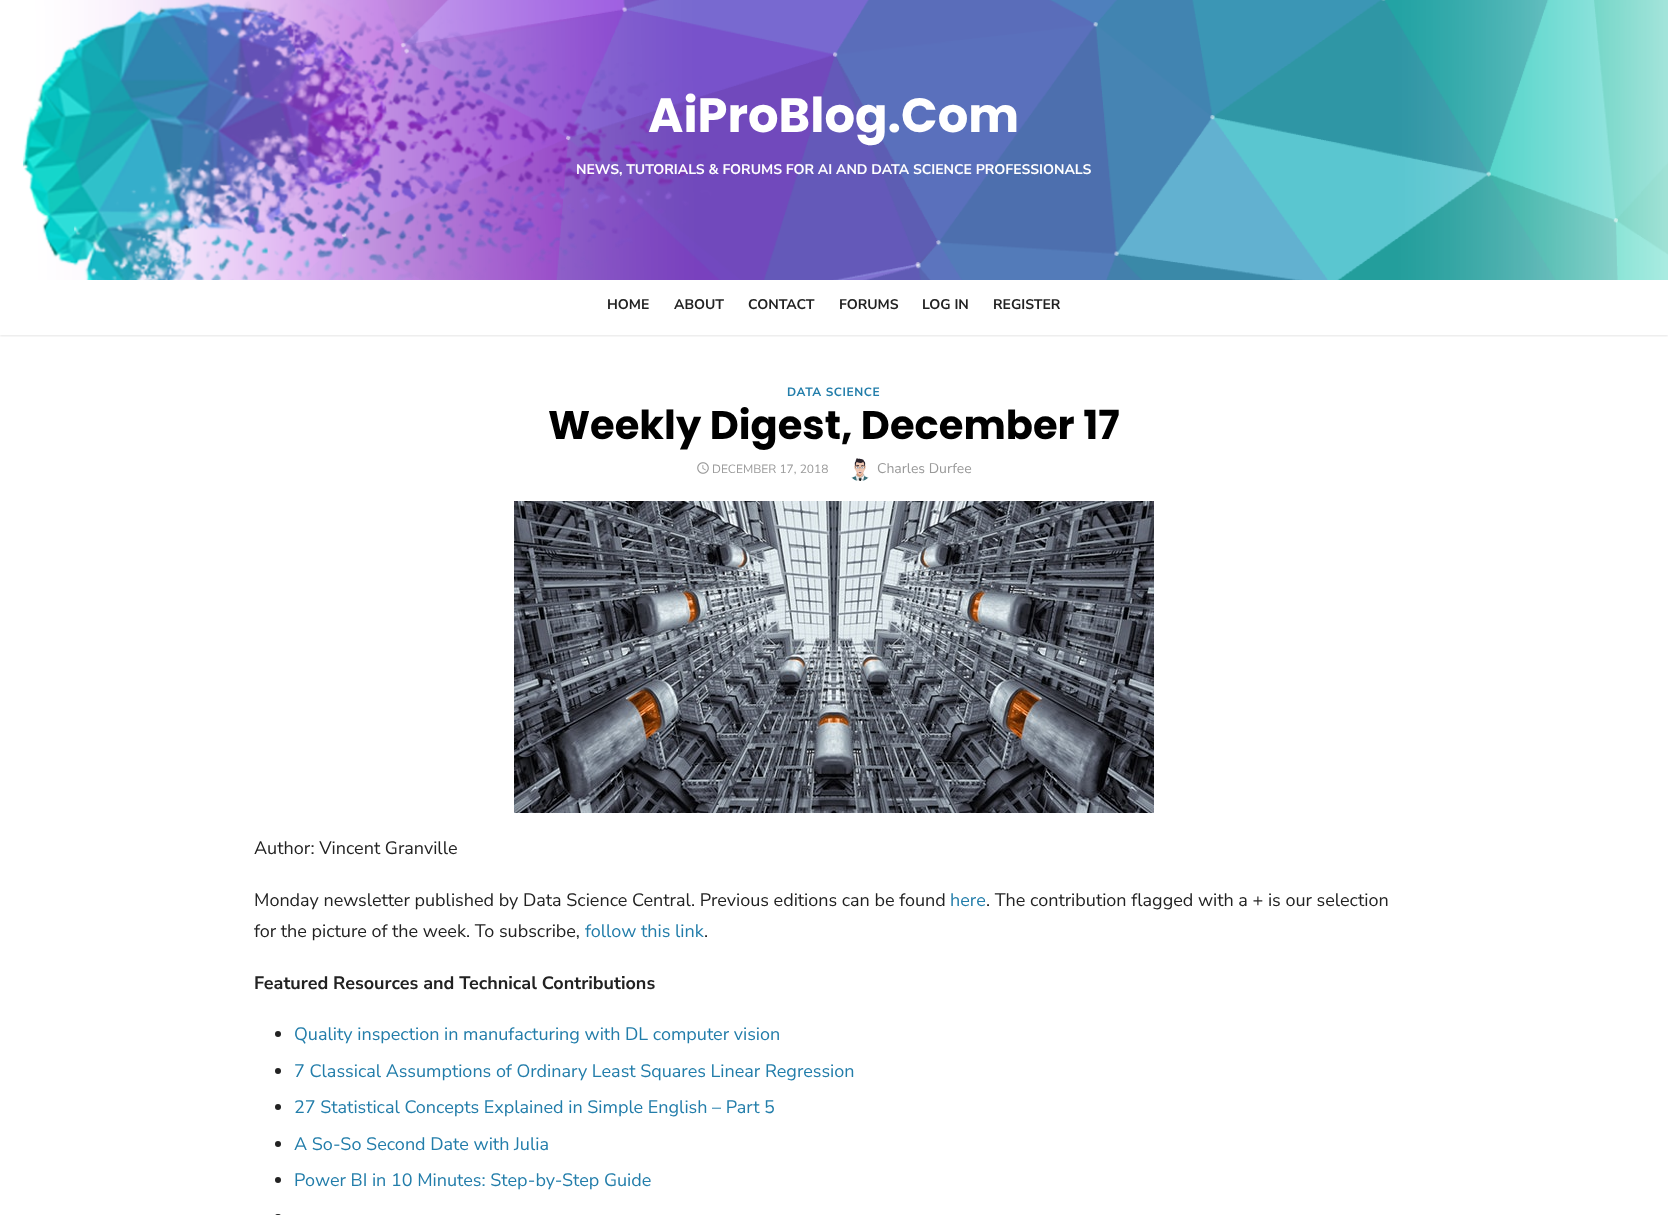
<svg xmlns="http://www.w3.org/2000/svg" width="1668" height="1215">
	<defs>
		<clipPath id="clip1"><rect x="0" y="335" width="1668" height="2" /></clipPath>
	</defs>
	<rect width="100%" height="100%" fill="#FFFFFF" />
	<g clip-path="url(#clip1)">
		<rect x="0" y="281" width="1668" height="55" fill="#000000" fill-opacity="0.1" filter="blur(1px)" />
	</g>
	<image x="22" y="0" width="1646" height="280" href="assets/img1.png" />
	<text x="648" y="132" font-family="Poppins" font-size="48" font-weight="700" fill="#FFFFFF">AiProBlog.Com</text>
	<text x="576" y="174" font-family="Nunito Sans" font-size="14" font-weight="700" fill="#FFFFFF">NEWS, TUTORIALS &amp; FORUMS FOR AI AND DATA SCIENCE PROFESSIONALS</text>
	<g font-family="Nunito Sans" font-size="14" font-weight="700" fill="#222222">
		<text x="607" y="309">HOME</text>
		<text x="674" y="309">ABOUT</text>
		<text x="748" y="309">CONTACT</text>
		<text x="839" y="309">FORUMS</text>
		<text x="922" y="309">LOG IN</text>
		<text x="993" y="309">REGISTER</text>
	</g>
	<text x="787" y="396" font-family="Nunito Sans" font-size="12" font-weight="700" letter-spacing="0.6" fill="#227DAA">DATA SCIENCE</text>
	<text x="548" y="439" font-family="Poppins" font-size="40" font-weight="700" fill="#000000">Weekly Digest, December 17</text>
	<image x="697" y="462" width="12" height="12" href="assets/img2.png" />
	<text x="712" y="473" font-family="Nunito Sans" font-size="12" fill="#999999">DECEMBER 17, 2018</text>
	<image x="851" y="458" width="18" height="23" href="assets/img3.png" />
	<text x="877" y="473" font-family="Nunito Sans" font-size="14" fill="#999999">Charles Durfee</text>
	<image x="514" y="501" width="640" height="312" href="assets/img4.png" />
	<g font-family="Nunito Sans" font-size="18" fill="#222222">
		<text x="254" y="854">Author: Vincent Granville</text>
		<text x="254" y="906">Monday newsletter published by Data Science Central. Previous editions can be found</text>
	</g>
	<text x="950" y="906" font-family="Nunito Sans" font-size="18" fill="#227DAA">here</text>
	<g font-family="Nunito Sans" font-size="18" fill="#222222">
		<text x="986" y="906">. The contribution flagged with a + is our selection</text>
		<text x="254" y="937">for the picture of the week. To subscribe,</text>
	</g>
	<text x="585" y="937" font-family="Nunito Sans" font-size="18" fill="#227DAA">follow this link</text>
	<text x="704" y="937" font-family="Nunito Sans" font-size="18" fill="#222222">.</text>
	<text x="254" y="989" font-family="Nunito Sans" font-size="18" font-weight="700" fill="#222222">Featured Resources and Technical Contributions</text>
	<circle cx="278" cy="1034" r="3" fill="#222222" />
	<text x="294" y="1040" font-family="Nunito Sans" font-size="18" fill="#227DAA">Quality inspection in manufacturing with DL computer vision</text>
	<circle cx="278" cy="1071" r="3" fill="#222222" />
	<text x="294" y="1077" font-family="Nunito Sans" font-size="18" fill="#227DAA">7 Classical Assumptions of Ordinary Least Squares Linear Regression</text>
	<circle cx="278" cy="1107" r="3" fill="#222222" />
	<text x="294" y="1113" font-family="Nunito Sans" font-size="18" fill="#227DAA">27 Statistical Concepts Explained in Simple English – Part 5</text>
	<circle cx="278" cy="1144" r="3" fill="#222222" />
	<text x="294" y="1150" font-family="Nunito Sans" font-size="18" fill="#227DAA">A So-So Second Date with Julia</text>
	<circle cx="278" cy="1180" r="3" fill="#222222" />
	<text x="294" y="1186" font-family="Nunito Sans" font-size="18" fill="#227DAA">Power BI in 10 Minutes: Step-by-Step Guide</text>
	<rect x="275" y="1214" width="6" height="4" rx="3" fill="#222222" />
</svg>
